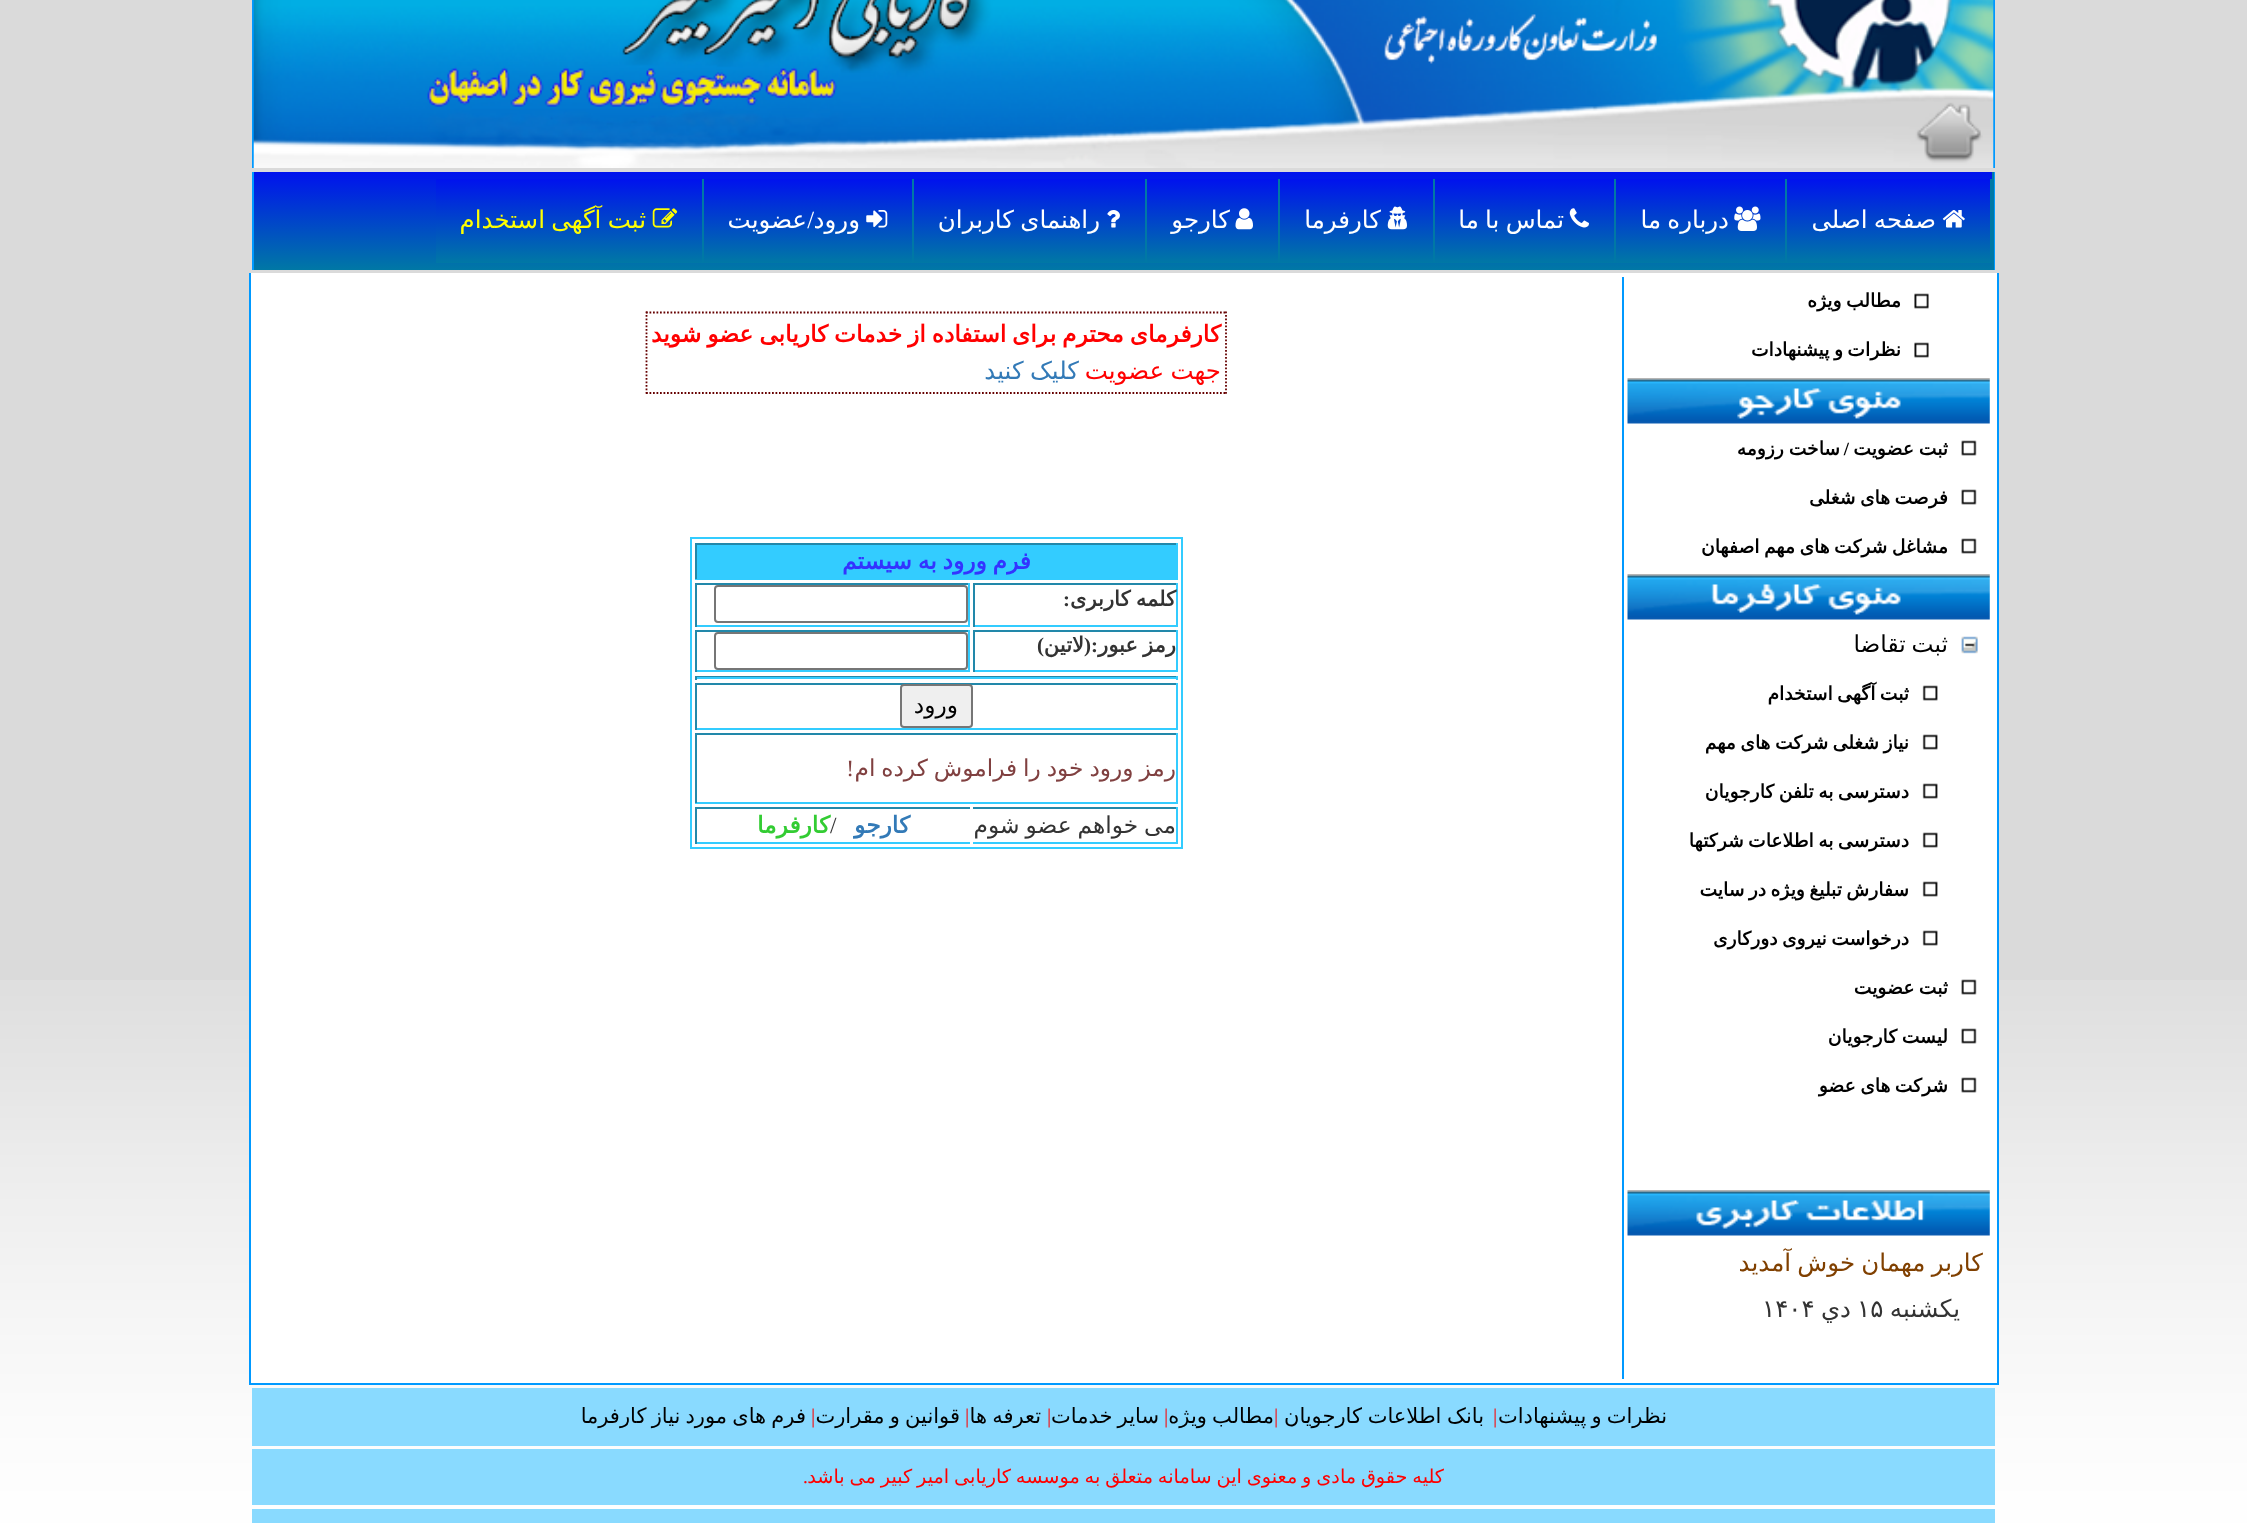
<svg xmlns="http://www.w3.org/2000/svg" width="2247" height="1523">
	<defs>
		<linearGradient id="g1" gradientUnits="userSpaceOnUse" x1="254" y1="172" x2="254" y2="270"><stop offset="0" stop-color="#0012EE" /><stop offset="1" stop-color="#0078A5" /></linearGradient>
		<linearGradient id="g2" gradientUnits="userSpaceOnUse" x1="1787" y1="179" x2="1787" y2="263"><stop offset="0" stop-color="#0012EE" /><stop offset="1" stop-color="#0078A5" /></linearGradient>
		<linearGradient id="g3" gradientUnits="userSpaceOnUse" x1="1615" y1="179" x2="1615" y2="263"><stop offset="0" stop-color="#0012EE" /><stop offset="1" stop-color="#0078A5" /></linearGradient>
		<linearGradient id="g4" gradientUnits="userSpaceOnUse" x1="1435" y1="179" x2="1435" y2="263"><stop offset="0" stop-color="#0012EE" /><stop offset="1" stop-color="#0078A5" /></linearGradient>
		<linearGradient id="g5" gradientUnits="userSpaceOnUse" x1="1279" y1="179" x2="1279" y2="263"><stop offset="0" stop-color="#0012EE" /><stop offset="1" stop-color="#0078A5" /></linearGradient>
		<linearGradient id="g6" gradientUnits="userSpaceOnUse" x1="1146" y1="179" x2="1146" y2="263"><stop offset="0" stop-color="#0012EE" /><stop offset="1" stop-color="#0078A5" /></linearGradient>
		<linearGradient id="g7" gradientUnits="userSpaceOnUse" x1="914" y1="179" x2="914" y2="263"><stop offset="0" stop-color="#0012EE" /><stop offset="1" stop-color="#0078A5" /></linearGradient>
		<linearGradient id="g8" gradientUnits="userSpaceOnUse" x1="704" y1="179" x2="704" y2="263"><stop offset="0" stop-color="#0012EE" /><stop offset="1" stop-color="#0078A5" /></linearGradient>
		<linearGradient id="g9" gradientUnits="userSpaceOnUse" x1="436" y1="179" x2="436" y2="263"><stop offset="0" stop-color="#0012EE" /><stop offset="1" stop-color="#0078A5" /></linearGradient>
	</defs>
	<rect width="100%" height="100%" fill="#DADADA" />
	<image x="0" y="980" width="2247" height="543" href="assets/img1.png" />
	<rect x="1993" y="0" width="2" height="168" fill="#0099FF" />
	<rect x="252" y="0" width="2" height="168" fill="#0099FF" />
	<image x="253" y="0" width="1741" height="168" href="assets/img2.png" />
	<rect x="1994" y="172" width="1" height="98" fill="#0099FF" />
	<rect x="252" y="172" width="2" height="98" fill="#0099FF" />
	<rect x="254" y="172" width="1738" height="98" fill="url(#g1)" />
	<rect x="1992" y="172" width="2" height="98" fill="#0078A5" />
	<rect x="1787" y="179" width="203" height="84" fill="url(#g2)" />
	<rect x="1990" y="179" width="2" height="84" fill="#0078A5" />
	<image x="1942" y="210" width="23" height="18" href="assets/img3.png" />
	<text x="1936" y="228" word-spacing="-1.5" font-family="DejaVu Sans" font-size="24.5" direction="rtl" fill="#FFFFFF">صفحه اصلی</text>
	<rect x="1616" y="179" width="169" height="84" fill="url(#g3)" />
	<rect x="1785" y="179" width="2" height="84" fill="#0078A5" />
	<image x="1734" y="206" width="27" height="25" href="assets/img4.png" />
	<text x="1729" y="228" word-spacing="-1.5" font-family="DejaVu Sans" font-size="24.5" direction="rtl" fill="#FFFFFF">درباره ما</text>
	<rect x="1435" y="179" width="179" height="84" fill="url(#g4)" />
	<rect x="1614" y="179" width="2" height="84" fill="#0078A5" />
	<image x="1569" y="208" width="20" height="20" href="assets/img5.png" />
	<text x="1564" y="228" word-spacing="-1.5" font-family="DejaVu Sans" font-size="24.5" direction="rtl" fill="#FFFFFF">تماس با ما</text>
	<rect x="1280" y="179" width="153" height="84" fill="url(#g5)" />
	<rect x="1433" y="179" width="2" height="84" fill="#0078A5" />
	<image x="1387" y="206" width="20" height="24" href="assets/img6.png" />
	<text x="1381" y="228" font-family="DejaVu Sans" font-size="24.5" direction="rtl" fill="#FFFFFF">کارفرما</text>
	<rect x="1147" y="179" width="131" height="84" fill="url(#g6)" />
	<rect x="1278" y="179" width="2" height="84" fill="#0078A5" />
	<image x="1235" y="208" width="18" height="22" href="assets/img7.png" />
	<text x="1230" y="228" font-family="DejaVu Sans" font-size="24.5" direction="rtl" fill="#FFFFFF">کارجو</text>
	<rect x="914" y="179" width="231" height="84" fill="url(#g7)" />
	<rect x="1145" y="179" width="2" height="84" fill="#0078A5" />
	<image x="1107" y="210" width="13" height="18" href="assets/img8.png" />
	<text x="1100" y="228" word-spacing="-1.5" font-family="DejaVu Sans" font-size="24.5" direction="rtl" fill="#FFFFFF">راهنمای کاربران</text>
	<rect x="704" y="179" width="208" height="84" fill="url(#g8)" />
	<rect x="912" y="179" width="2" height="84" fill="#0078A5" />
	<image x="866" y="210" width="22" height="18" href="assets/img9.png" />
	<text x="860" y="228" font-family="DejaVu Sans" font-size="24.5" direction="rtl" fill="#FFFFFF">ورود</text>
	<text x="814" y="228" font-family="Liberation Serif" font-size="24.5" direction="rtl" fill="#FFFFFF">/</text>
	<text x="807" y="228" font-family="DejaVu Sans" font-size="24.5" direction="rtl" fill="#FFFFFF">عضویت</text>
	<rect x="436" y="179" width="266" height="84" fill="url(#g9)" />
	<rect x="702" y="179" width="2" height="84" fill="#0078A5" />
	<image x="652" y="208" width="26" height="20" href="assets/img10.png" />
	<text x="646" y="228" word-spacing="-1.5" font-family="DejaVu Sans" font-size="24.5" direction="rtl" fill="#FFFF00">ثبت آگهی استخدام</text>
	<rect x="251" y="273" width="1746" height="1110" fill="#FFFFFF" />
	<rect x="1997" y="273" width="2" height="1111" fill="#0099FF" />
	<rect x="249" y="1383" width="1750" height="2" fill="#0099FF" />
	<rect x="249" y="273" width="2" height="1111" fill="#0099FF" />
	<rect x="1622" y="277" width="2" height="1102" fill="#0099FF" />
	<image x="1914" y="293" width="15" height="16" href="assets/img11.png" />
	<text x="1901" y="307" word-spacing="-1.5" font-family="DejaVu Sans" font-size="18.7" font-weight="700" direction="rtl" fill="#000000">مطالب ویژه</text>
	<image x="1914" y="342" width="15" height="16" href="assets/img11.png" />
	<text x="1901" y="356" word-spacing="-1.5" font-family="DejaVu Sans" font-size="18.7" font-weight="700" direction="rtl" fill="#000000">نظرات و پیشنهادات</text>
	<image x="1627" y="378" width="363" height="46" href="assets/img12.png" />
	<image x="1961" y="440" width="16" height="16" href="assets/img13.png" />
	<text x="1948" y="455" word-spacing="-1" font-family="DejaVu Sans" font-size="18.7" font-weight="700" direction="rtl" fill="#000000">ثبت عضویت</text>
	<text x="1849" y="455" font-family="Liberation Serif" font-size="18.7" font-weight="700" direction="rtl" fill="#000000">/</text>
	<text x="1840" y="455" word-spacing="-1" font-family="DejaVu Sans" font-size="18.7" font-weight="700" direction="rtl" fill="#000000">ساخت رزومه</text>
	<image x="1961" y="489" width="16" height="16" href="assets/img13.png" />
	<text x="1948" y="504" word-spacing="-1.5" font-family="DejaVu Sans" font-size="18.7" font-weight="700" direction="rtl" fill="#000000">فرصت های شغلی</text>
	<image x="1961" y="538" width="16" height="16" href="assets/img13.png" />
	<text x="1948" y="553" word-spacing="-1.5" font-family="DejaVu Sans" font-size="18.7" font-weight="700" direction="rtl" fill="#000000">مشاغل شرکت های مهم اصفهان</text>
	<image x="1627" y="574" width="363" height="46" href="assets/img14.png" />
	<image x="1961" y="636" width="17" height="18" href="assets/img15.png" />
	<text x="1948" y="652" word-spacing="-1.5" font-family="DejaVu Sans" font-size="23.3" direction="rtl" fill="#000000">ثبت تقاضا</text>
	<image x="1922" y="685" width="16" height="16" href="assets/img16.png" />
	<text x="1909" y="700" word-spacing="-1.5" font-family="DejaVu Sans" font-size="18.7" font-weight="700" direction="rtl" fill="#000000">ثبت آگهی استخدام</text>
	<image x="1922" y="734" width="16" height="16" href="assets/img16.png" />
	<text x="1909" y="749" word-spacing="-1.5" font-family="DejaVu Sans" font-size="18.7" font-weight="700" direction="rtl" fill="#000000">نیاز شغلی شرکت های مهم</text>
	<image x="1922" y="783" width="16" height="16" href="assets/img16.png" />
	<text x="1909" y="798" word-spacing="-1.5" font-family="DejaVu Sans" font-size="18.7" font-weight="700" direction="rtl" fill="#000000">دسترسی به تلفن کارجویان</text>
	<image x="1922" y="832" width="16" height="16" href="assets/img16.png" />
	<text x="1909" y="847" word-spacing="-1.5" font-family="DejaVu Sans" font-size="18.7" font-weight="700" direction="rtl" fill="#000000">دسترسی به اطلاعات شرکتها</text>
	<image x="1922" y="881" width="16" height="16" href="assets/img16.png" />
	<text x="1909" y="896" word-spacing="-1.5" font-family="DejaVu Sans" font-size="18.7" font-weight="700" direction="rtl" fill="#000000">سفارش تبلیغ ویژه در سایت</text>
	<image x="1922" y="930" width="16" height="16" href="assets/img16.png" />
	<text x="1909" y="945" word-spacing="-1.5" font-family="DejaVu Sans" font-size="18.7" font-weight="700" direction="rtl" fill="#000000">درخواست نیروی دورکاری</text>
	<image x="1961" y="979" width="16" height="16" href="assets/img13.png" />
	<text x="1948" y="994" word-spacing="-1.5" font-family="DejaVu Sans" font-size="18.7" font-weight="700" direction="rtl" fill="#000000">ثبت عضویت</text>
	<image x="1961" y="1028" width="16" height="16" href="assets/img13.png" />
	<text x="1948" y="1043" word-spacing="-1.5" font-family="DejaVu Sans" font-size="18.7" font-weight="700" direction="rtl" fill="#000000">لیست کارجویان</text>
	<image x="1961" y="1077" width="16" height="16" href="assets/img13.png" />
	<text x="1948" y="1092" word-spacing="-1.5" font-family="DejaVu Sans" font-size="18.7" font-weight="700" direction="rtl" fill="#000000">شرکت های عضو</text>
	<image x="1627" y="1190" width="363" height="46" href="assets/img17.png" />
	<text x="1983" y="1271" word-spacing="-1.5" font-family="DejaVu Sans" font-size="24.5" direction="rtl" fill="#804000">کاربر مهمان خوش آمدید</text>
	<text x="1960" y="1317" font-family="DejaVu Sans" font-size="24.5" direction="rtl" fill="#333333">يکشنبه</text>
	<text x="1857" y="1317" font-family="DejaVu Sans" font-size="24.5" fill="#333333">۱۵</text>
	<text x="1851" y="1317" font-family="DejaVu Sans" font-size="24.5" direction="rtl" fill="#333333">دي</text>
	<text x="1762" y="1317" font-family="DejaVu Sans" font-size="24.5" fill="#333333">۱۴۰۴</text>
	<path d="M646 312.5H1227" fill="none" stroke="#660000" stroke-width="1.8" stroke-dasharray="1.75 1.75" />
	<path d="M1226 311.5V394" fill="none" stroke="#660000" stroke-width="1.8" stroke-dasharray="1.75 1.75" />
	<path d="M646 393H1227" fill="none" stroke="#660000" stroke-width="1.8" stroke-dasharray="1.75 1.75" />
	<path d="M646.5 311.5V394" fill="none" stroke="#660000" stroke-width="1.8" stroke-dasharray="1.75 1.75" />
	<text x="1221" y="342" word-spacing="-1.5" font-family="DejaVu Sans" font-size="23.3" font-weight="700" direction="rtl" fill="#FF0000">کارفرمای محترم برای استفاده از خدمات کاریابی عضو شوید</text>
	<text x="1221" y="379" word-spacing="-1.5" font-family="DejaVu Sans" font-size="24.5" direction="rtl" fill="#FF0000">جهت عضویت</text>
	<text x="1079" y="379" word-spacing="-1.5" font-family="DejaVu Sans" font-size="24.5" direction="rtl" fill="#337AB7">کلیک کنید</text>
	<rect x="691" y="538" width="491" height="310" fill="none" stroke="#33CCFF" stroke-width="2" />
	<rect x="697" y="545" width="479" height="33" fill="#33CCFF" />
	<rect x="695" y="543" width="483" height="2" fill="#2288AA" />
	<rect x="1176" y="543" width="2" height="36" fill="#33CCFF" />
	<rect x="695" y="578" width="483" height="2" fill="#33CCFF" />
	<rect x="695" y="543" width="2" height="36" fill="#2288AA" />
	<text x="1031" y="569" word-spacing="-1.5" font-family="DejaVu Sans" font-size="23.3" font-weight="700" direction="rtl" fill="#3333FF">فرم ورود به سیستم</text>
	<rect x="973" y="583" width="205" height="2" fill="#2288AA" />
	<rect x="1176" y="583" width="2" height="44" fill="#33CCFF" />
	<rect x="973" y="625" width="205" height="2" fill="#33CCFF" />
	<rect x="973" y="583" width="2" height="44" fill="#2288AA" />
	<text x="1176" y="606" word-spacing="-1.5" font-family="DejaVu Sans" font-size="21" font-weight="700" direction="rtl" fill="#333333">کلمه کاربری</text>
	<text x="1070" y="606" font-family="Liberation Serif" font-size="21" font-weight="700" direction="rtl" fill="#333333">:</text>
	<rect x="695" y="583" width="275" height="2" fill="#2288AA" />
	<rect x="968" y="583" width="2" height="44" fill="#33CCFF" />
	<rect x="695" y="625" width="275" height="2" fill="#33CCFF" />
	<rect x="695" y="583" width="2" height="44" fill="#2288AA" />
	<rect x="715" y="586" width="252" height="36" rx="3" fill="none" stroke="#767676" stroke-width="2" />
	<rect x="973" y="630" width="205" height="2" fill="#2288AA" />
	<rect x="1176" y="630" width="2" height="42" fill="#33CCFF" />
	<rect x="973" y="670" width="205" height="2" fill="#33CCFF" />
	<rect x="973" y="630" width="2" height="42" fill="#2288AA" />
	<text x="1098" y="652" font-family="Liberation Serif" font-size="21" font-weight="700" direction="rtl" fill="#333333">:(</text>
	<g font-family="DejaVu Sans" font-size="21" font-weight="700" direction="rtl" fill="#333333">
		<text x="1176" y="652" word-spacing="-1.5">رمز عبور</text>
		<text x="1084" y="652">لاتین</text>
	</g>
	<text x="1044" y="652" font-family="Liberation Serif" font-size="21" font-weight="700" direction="rtl" fill="#333333">)</text>
	<rect x="695" y="630" width="275" height="2" fill="#2288AA" />
	<rect x="968" y="630" width="2" height="42" fill="#33CCFF" />
	<rect x="695" y="670" width="275" height="2" fill="#33CCFF" />
	<rect x="695" y="630" width="2" height="42" fill="#2288AA" />
	<rect x="715" y="633" width="252" height="36" rx="3" fill="none" stroke="#767676" stroke-width="2" />
	<rect x="695" y="676" width="483" height="1" fill="#2288AA" />
	<rect x="1176" y="676" width="2" height="4" fill="#33CCFF" />
	<rect x="695" y="677" width="483" height="2" fill="#33CCFF" />
	<rect x="695" y="676" width="2" height="4" fill="#2288AA" />
	<rect x="695" y="683" width="483" height="2" fill="#2288AA" />
	<rect x="1176" y="683" width="2" height="47" fill="#33CCFF" />
	<rect x="695" y="728" width="483" height="2" fill="#33CCFF" />
	<rect x="695" y="683" width="2" height="47" fill="#2288AA" />
	<rect x="901" y="685" width="71" height="42" rx="3" fill="#EFEFEF" stroke="#767676" stroke-width="2" />
	<text x="958" y="713" font-family="DejaVu Sans" font-size="23.3" direction="rtl" fill="#000000">ورود</text>
	<rect x="695" y="733" width="483" height="2" fill="#2288AA" />
	<rect x="1176" y="733" width="2" height="70" fill="#33CCFF" />
	<rect x="695" y="802" width="483" height="2" fill="#33CCFF" />
	<rect x="695" y="733" width="2" height="70" fill="#2288AA" />
	<text x="1176" y="776" word-spacing="-1.5" font-family="DejaVu Sans" font-size="23.3" direction="rtl" fill="#804040">رمز ورود خود را فراموش کرده ام</text>
	<text x="854" y="776" font-family="Liberation Serif" font-size="23.3" direction="rtl" fill="#804040">!</text>
	<rect x="973" y="807" width="205" height="2" fill="#2288AA" />
	<rect x="1176" y="807" width="2" height="37" fill="#33CCFF" />
	<rect x="973" y="842" width="205" height="2" fill="#33CCFF" />
	<text x="1176" y="833" word-spacing="-1.5" font-family="DejaVu Sans" font-size="23.3" direction="rtl" fill="#333333">می خواهم عضو شوم</text>
	<rect x="695" y="807" width="275" height="2" fill="#2288AA" />
	<rect x="695" y="842" width="275" height="2" fill="#33CCFF" />
	<rect x="695" y="807" width="2" height="37" fill="#2288AA" />
	<text x="910" y="833" font-family="DejaVu Sans" font-size="23.3" font-weight="700" direction="rtl" fill="#337AB7">کارجو</text>
	<text x="830" y="833" font-family="Liberation Serif" font-size="23.3" fill="#333333">/</text>
	<text x="830" y="833" font-family="DejaVu Sans" font-size="23.3" font-weight="700" direction="rtl" fill="#33CC33">کارفرما</text>
	<rect x="252" y="1388" width="1743" height="58" fill="#89DAFF" />
	<text x="1667" y="1423" word-spacing="-1.5" font-family="DejaVu Sans" font-size="21" direction="rtl" fill="#000000">نظرات و پیشنهادات</text>
	<text x="1493" y="1423" font-family="Liberation Serif" font-size="21" fill="#FF0000">|</text>
	<text x="1484" y="1423" word-spacing="-1" font-family="DejaVu Sans" font-size="21" direction="rtl" fill="#000000">بانک اطلاعات کارجویان</text>
	<text x="1274" y="1423" font-family="Liberation Serif" font-size="21" fill="#FF0000">|</text>
	<text x="1274" y="1423" word-spacing="-1.5" font-family="DejaVu Sans" font-size="21" direction="rtl" fill="#000000">مطالب ویژه</text>
	<text x="1164" y="1423" font-family="Liberation Serif" font-size="21" fill="#FF0000">|</text>
	<text x="1159" y="1423" word-spacing="-1.5" font-family="DejaVu Sans" font-size="21" direction="rtl" fill="#000000">سایر خدمات</text>
	<text x="1047" y="1423" font-family="Liberation Serif" font-size="21" fill="#FF0000">|</text>
	<text x="1041" y="1423" word-spacing="-1.5" font-family="DejaVu Sans" font-size="21" direction="rtl" fill="#000000">تعرفه ها</text>
	<text x="965" y="1423" font-family="Liberation Serif" font-size="21" fill="#FF0000">|</text>
	<text x="960" y="1423" word-spacing="-1.5" font-family="DejaVu Sans" font-size="21" direction="rtl" fill="#000000">قوانین و مقرارت</text>
	<text x="811" y="1423" font-family="Liberation Serif" font-size="21" fill="#FF0000">|</text>
	<text x="806" y="1423" word-spacing="-1.5" font-family="DejaVu Sans" font-size="21" direction="rtl" fill="#000000">فرم های مورد نیاز کارفرما</text>
	<rect x="252" y="1449" width="1743" height="56" fill="#89DAFF" />
	<text x="1444" y="1483" word-spacing="-1.25" font-family="DejaVu Sans" font-size="19.25" direction="rtl" fill="#FF0000">کلیه حقوق مادی و معنوی این سامانه متعلق به موسسه کاریابی امیر کبیر می باشد</text>
	<text x="803" y="1483" font-family="Liberation Serif" font-size="19.25" fill="#FF0000">.</text>
	<rect x="252" y="1509" width="1743" height="14" fill="#89DAFF" />
</svg>
